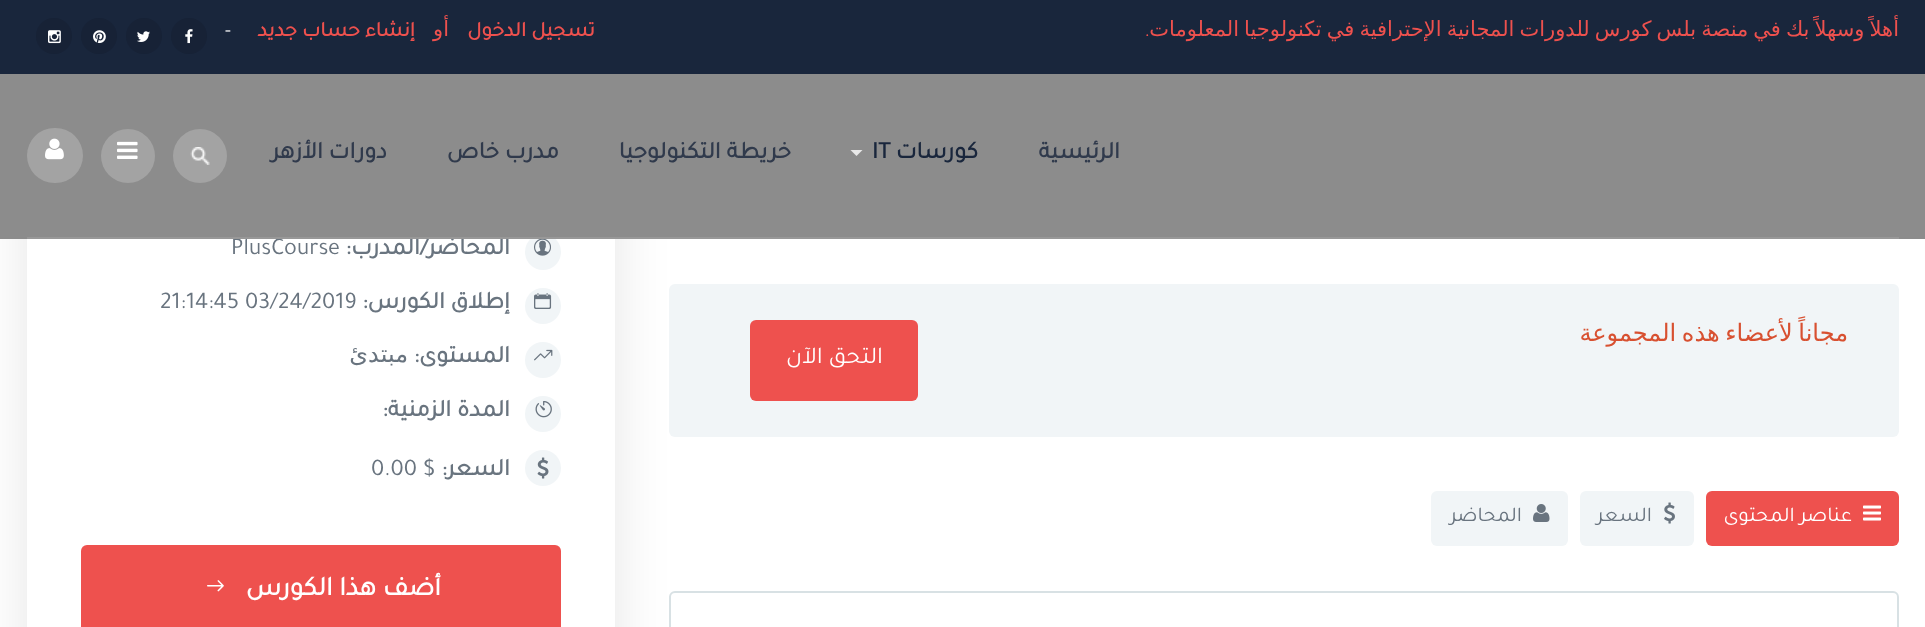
<svg xmlns="http://www.w3.org/2000/svg" width="1925" height="627">
	<defs>
		<clipPath id="clip1"><path d="M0 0H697V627H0ZM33-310H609C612.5-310 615-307.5 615-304V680C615 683.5 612.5 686 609 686H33C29.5 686 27 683.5 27 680V-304C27-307.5 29.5-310 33-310Z" clip-rule="evenodd" /></clipPath>
	</defs>
	<rect width="100%" height="100%" fill="#FFFFFF" />
	<g clip-path="url(#clip1)">
		<rect x="27" y="-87" width="588" height="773" rx="6" fill="#000000" fill-opacity="0.1" filter="blur(27px)" />
	</g>
	<rect x="0" y="0" width="1925" height="74" fill="#19263C" />
	<text x="1899" y="36" word-spacing="-1.6" font-family="DejaVu Sans" font-size="21" direction="rtl" fill="#EE514E">أهلاً وسهلاً بك في منصة بلس كورس للدورات المجانية الإحترافية في تكنولوجيا المعلومات</text>
	<text x="1150" y="36" font-family="Tajawal" font-size="21" direction="rtl" fill="#EE514E">.</text>
	<text x="595" y="36" font-family="Tajawal" font-size="21" font-weight="700" direction="rtl" fill="#EE514E">تسجيل الدخول</text>
	<text x="449" y="36" font-family="DejaVu Sans" font-size="21" direction="rtl" fill="#EE514E">أو</text>
	<text x="415" y="36" font-family="Tajawal" font-size="21" font-weight="700" direction="rtl" fill="#EE514E">إنشاء حساب جديد</text>
	<text x="225" y="36" font-family="Tajawal" font-size="21" fill="#FFFFFF">-</text>
	<circle cx="189" cy="36" r="18" fill="#172236" />
	<image x="185" y="29" width="8" height="15" href="assets/img1.png" />
	<circle cx="144" cy="36" r="18" fill="#172236" />
	<image x="137" y="31" width="13" height="11" href="assets/img2.png" />
	<circle cx="99" cy="36" r="18" fill="#172236" />
	<image x="93" y="30" width="13" height="14" href="assets/img3.png" />
	<circle cx="54" cy="36" r="18" fill="#172236" />
	<image x="48" y="30" width="13" height="14" href="assets/img4.png" />
	<circle cx="543" cy="252" r="18" fill="#F1F5F7" />
	<text x="510" y="254" font-family="Tajawal" font-size="24" font-weight="700" direction="rtl" fill="#69747F">المحاضر/المدرب:</text>
	<text x="231" y="254" font-family="Tajawal" font-size="24" fill="#69747F">PlusCourse</text>
	<rect x="0" y="74" width="1925" height="165" fill="#8C8C8C" />
	<rect x="27" y="237" width="1872" height="2" fill="#989898" />
	<text x="1120" y="158" font-family="Tajawal" font-size="24" font-weight="700" direction="rtl" fill="#303A4C">الرئيسية</text>
	<text x="978" y="158" font-family="Tajawal" font-size="24" font-weight="700" direction="rtl" fill="#19263C">كورسات</text>
	<text x="872" y="158" font-family="Tajawal" font-size="24" font-weight="700" fill="#19263C">IT</text>
	<path d="M850.5 150H862.5L856.5 156Z" fill="#E8E8E8" />
	<g font-family="Tajawal" font-size="24" font-weight="700" direction="rtl" fill="#303A4C">
		<text x="791" y="158">خريطة التكنولوجيا</text>
		<text x="559" y="158">مدرب خاص</text>
		<text x="387" y="158">دورات الأزهر</text>
	</g>
	<circle cx="200" cy="156" r="27" fill="#A3A3A3" />
	<image x="190" y="147" width="20" height="18" href="assets/img5.png" />
	<circle cx="128" cy="156" r="27" fill="#A3A3A3" />
	<image x="117" y="141" width="21" height="18" href="assets/img6.png" />
	<rect x="27" y="128" width="56" height="55" rx="27.5" fill="#A3A3A3" />
	<image x="45" y="138" width="19" height="22" href="assets/img7.png" />
	<rect x="669" y="284" width="1230" height="153" rx="6" fill="#F1F5F7" />
	<text x="1848" y="341" word-spacing="-2" font-family="DejaVu Sans" font-size="24" direction="rtl" fill="#D85030">مجاناً لأعضاء هذه المجموعة</text>
	<rect x="750" y="320" width="168" height="81" rx="6" fill="#EE514E" />
	<text x="883" y="363" font-family="'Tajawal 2'" font-size="24" direction="rtl" fill="#FFFFFF">التحق الآن</text>
	<rect x="1706" y="491" width="193" height="55" rx="6" fill="#EE514E" />
	<image x="1863" y="505" width="18" height="16" href="assets/img8.png" />
	<text x="1852" y="521" font-family="'Tajawal 2'" font-size="21" direction="rtl" fill="#FFFFFF">عناصر المحتوى</text>
	<rect x="1580" y="491" width="114" height="55" rx="6" fill="#F1F5F7" />
	<image x="1664" y="502" width="11" height="22" href="assets/img9.png" />
	<text x="1652" y="521" font-family="'Tajawal 2'" font-size="21" direction="rtl" fill="#69747F">السعر</text>
	<rect x="1431" y="491" width="137" height="55" rx="6" fill="#F1F5F7" />
	<image x="1533" y="504" width="17" height="18" href="assets/img10.png" />
	<text x="1522" y="521" font-family="'Tajawal 2'" font-size="21" direction="rtl" fill="#69747F">المحاضر</text>
	<rect x="670" y="592" width="1228" height="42" rx="5" fill="none" stroke="#D8E1E4" stroke-width="2" />
	<image x="534" y="239" width="17" height="17" href="assets/img11.png" />
	<circle cx="543" cy="306" r="18" fill="#F1F5F7" />
	<image x="534" y="293" width="18" height="16" href="assets/img12.png" />
	<text x="510" y="308" font-family="Tajawal" font-size="24" font-weight="700" direction="rtl" fill="#69747F">إطلاق الكورس:</text>
	<text x="160" y="308" font-family="Tajawal" font-size="24" fill="#69747F">21:14:45 03/24/2019</text>
	<circle cx="543" cy="360" r="18" fill="#F1F5F7" />
	<image x="534" y="349" width="19" height="12" href="assets/img13.png" />
	<text x="510" y="362" font-family="Tajawal" font-size="24" font-weight="700" direction="rtl" fill="#69747F">المستوى:</text>
	<text x="408" y="362" font-family="DejaVu Sans" font-size="24" direction="rtl" fill="#69747F">مبتدئ</text>
	<circle cx="543" cy="414" r="18" fill="#F1F5F7" />
	<image x="535" y="401" width="17" height="17" href="assets/img14.png" />
	<text x="510" y="416" font-family="Tajawal" font-size="24" font-weight="700" direction="rtl" fill="#69747F">المدة الزمنية:</text>
	<circle cx="543" cy="468" r="18" fill="#F1F5F7" />
	<image x="537" y="457" width="12" height="22" href="assets/img15.png" />
	<text x="510" y="475" font-family="Tajawal" font-size="24" font-weight="700" direction="rtl" fill="#69747F">السعر:</text>
	<text x="371" y="475" font-family="Tajawal" font-size="24" fill="#69747F">0.00 $</text>
	<rect x="81" y="545" width="480" height="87" rx="6" fill="#EE514E" />
	<text x="441" y="595" font-family="Tajawal" font-size="27" font-weight="700" direction="rtl" fill="#FFFFFF">أضف هذا الكورس</text>
	<image x="207" y="580" width="17" height="12" href="assets/img16.png" />
</svg>
